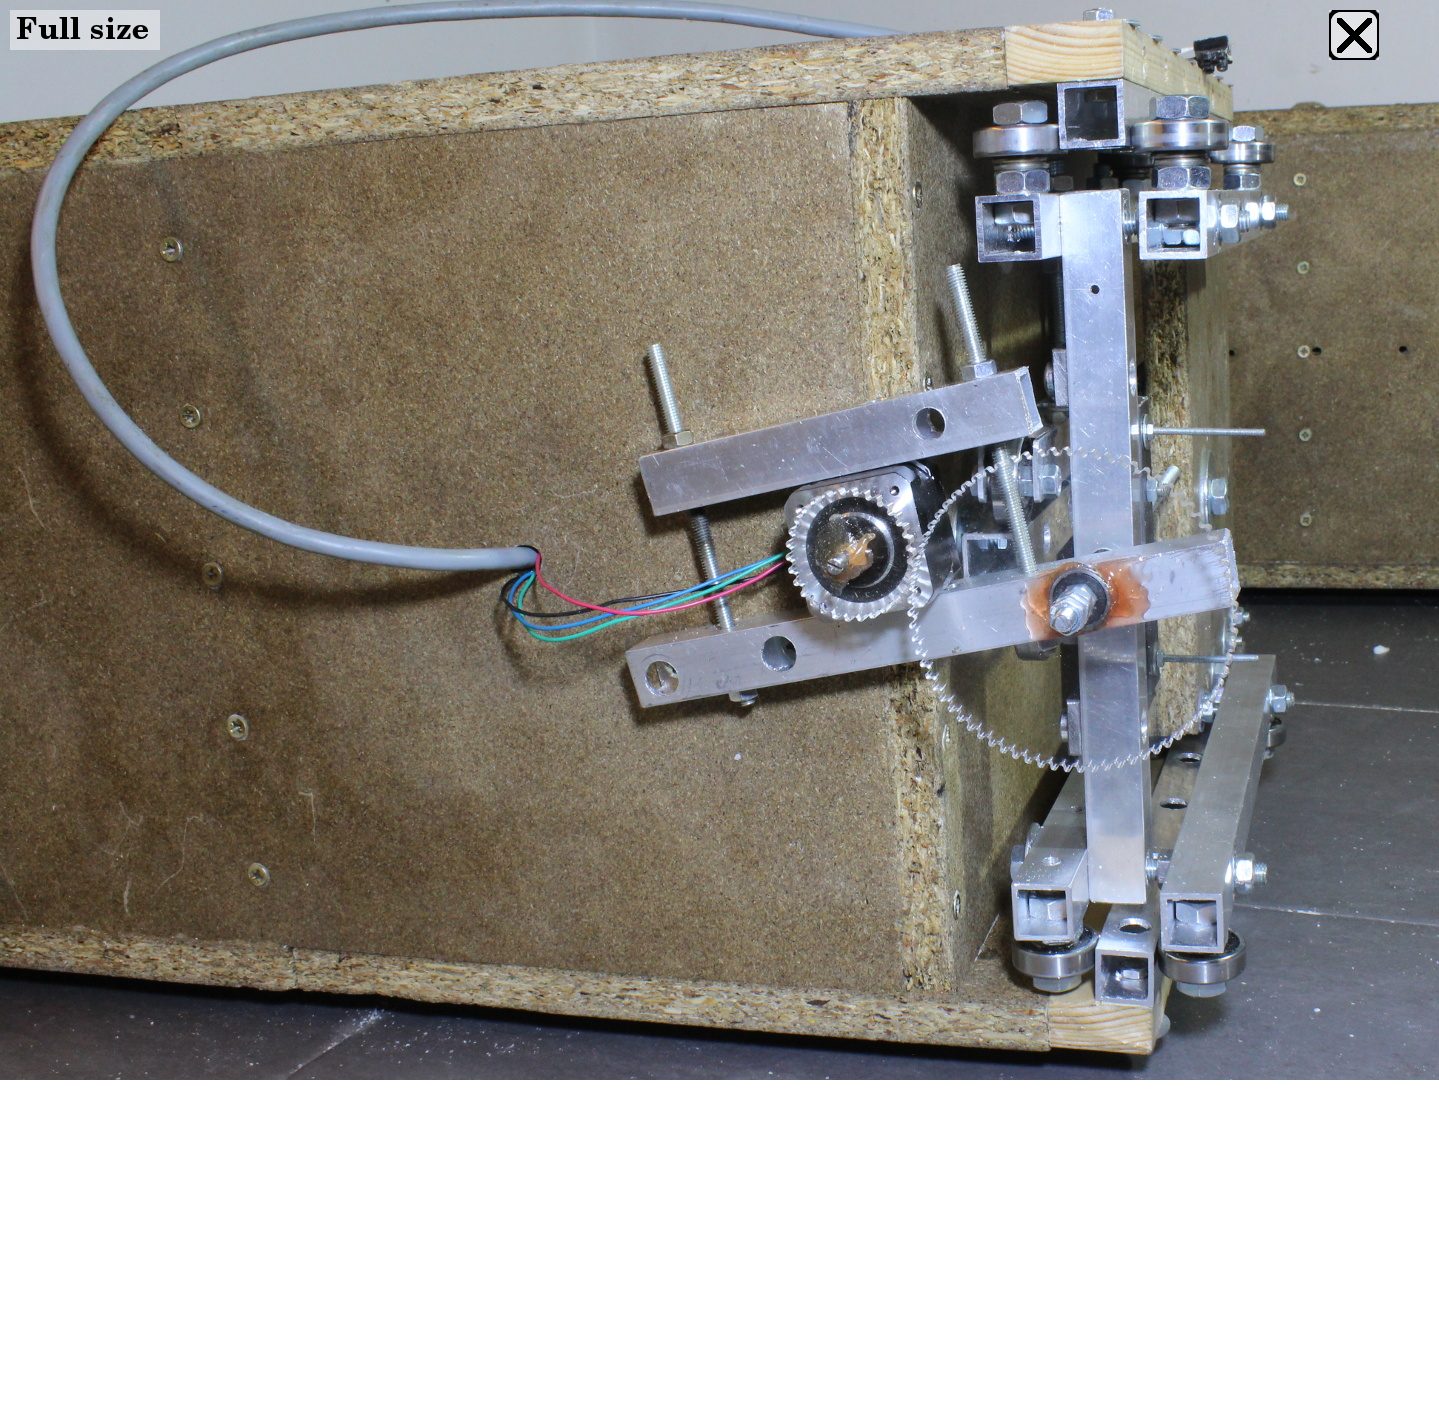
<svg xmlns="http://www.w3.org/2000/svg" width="1439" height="1407">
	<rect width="100%" height="100%" fill="#FFFFFF" />
	<image x="0" y="0" width="1439" height="1080" href="assets/img1.png" />
	<image x="10" y="10" width="150" height="40" href="assets/img2.png" />
	<image x="1329" y="10" width="50" height="50" href="assets/img3.png" />
</svg>
